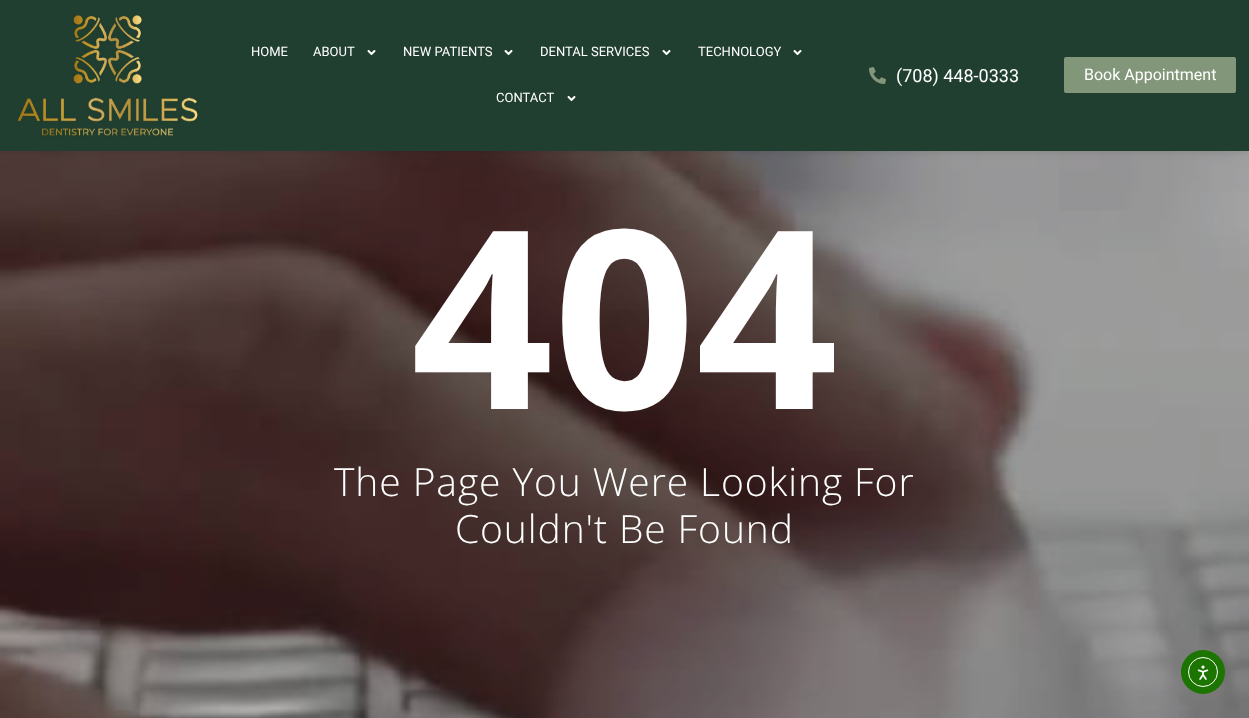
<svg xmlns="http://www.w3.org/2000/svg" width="1249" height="718">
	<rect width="100%" height="100%" fill="#FFFFFF" />
	<image x="0" y="151" width="1249" height="567" href="assets/img4.png" />
	<rect x="0" y="0" width="1249" height="151" fill="#000000" fill-opacity="0.15" filter="blur(5px)" />
	<rect x="0" y="0" width="1249" height="151" fill="#213F30" />
	<image x="15" y="15" width="183" height="124" href="assets/img1.png" />
	<g font-family="Roboto" font-size="13" fill="#FFFFFF">
		<text x="251" y="56">HOME</text>
		<text x="313" y="56">ABOUT</text>
	</g>
	<image x="367" y="49" width="9" height="7" href="assets/img2.png" />
	<text x="403" y="56" font-family="Roboto" font-size="13" fill="#FFFFFF">NEW PATIENTS</text>
	<image x="504" y="49" width="9" height="7" href="assets/img2.png" />
	<text x="540" y="56" font-family="Roboto" font-size="13" fill="#FFFFFF">DENTAL SERVICES</text>
	<image x="662" y="49" width="9" height="7" href="assets/img2.png" />
	<text x="698" y="56" font-family="Roboto" font-size="13" fill="#FFFFFF">TECHNOLOGY</text>
	<image x="793" y="49" width="9" height="7" href="assets/img2.png" />
	<text x="496" y="102" font-family="Roboto" font-size="13" fill="#FFFFFF">CONTACT</text>
	<image x="567" y="95" width="9" height="7" href="assets/img2.png" />
	<image x="869" y="67" width="17" height="17" href="assets/img3.png" />
	<text x="896" y="82" font-family="Roboto" font-size="18" fill="#FFFFFF">(708) 448-0333</text>
	<rect x="1064" y="57" width="172" height="36" rx="2" fill="#829779" />
	<text x="1084" y="80" font-family="Roboto" font-size="16" fill="#FFFFFF">Book Appointment</text>
	<text x="411" y="409" font-family="Open Sans" font-size="249" font-weight="700" fill="#FFFFFF">404</text>
	<g font-family="Open Sans" font-size="39" font-weight="300" letter-spacing="0.9" fill="#FFFFFF">
		<text x="334" y="496">The Page You Were Looking For</text>
		<text x="455" y="543">Couldn't Be Found</text>
	</g>
	<circle cx="1203" cy="672" r="22" fill="#1C7500" />
	<circle cx="1203" cy="672" r="14.5" fill="none" stroke="#FFFFFF" />
	<image x="1197" y="665" width="12" height="15" href="assets/img5.png" />
</svg>
